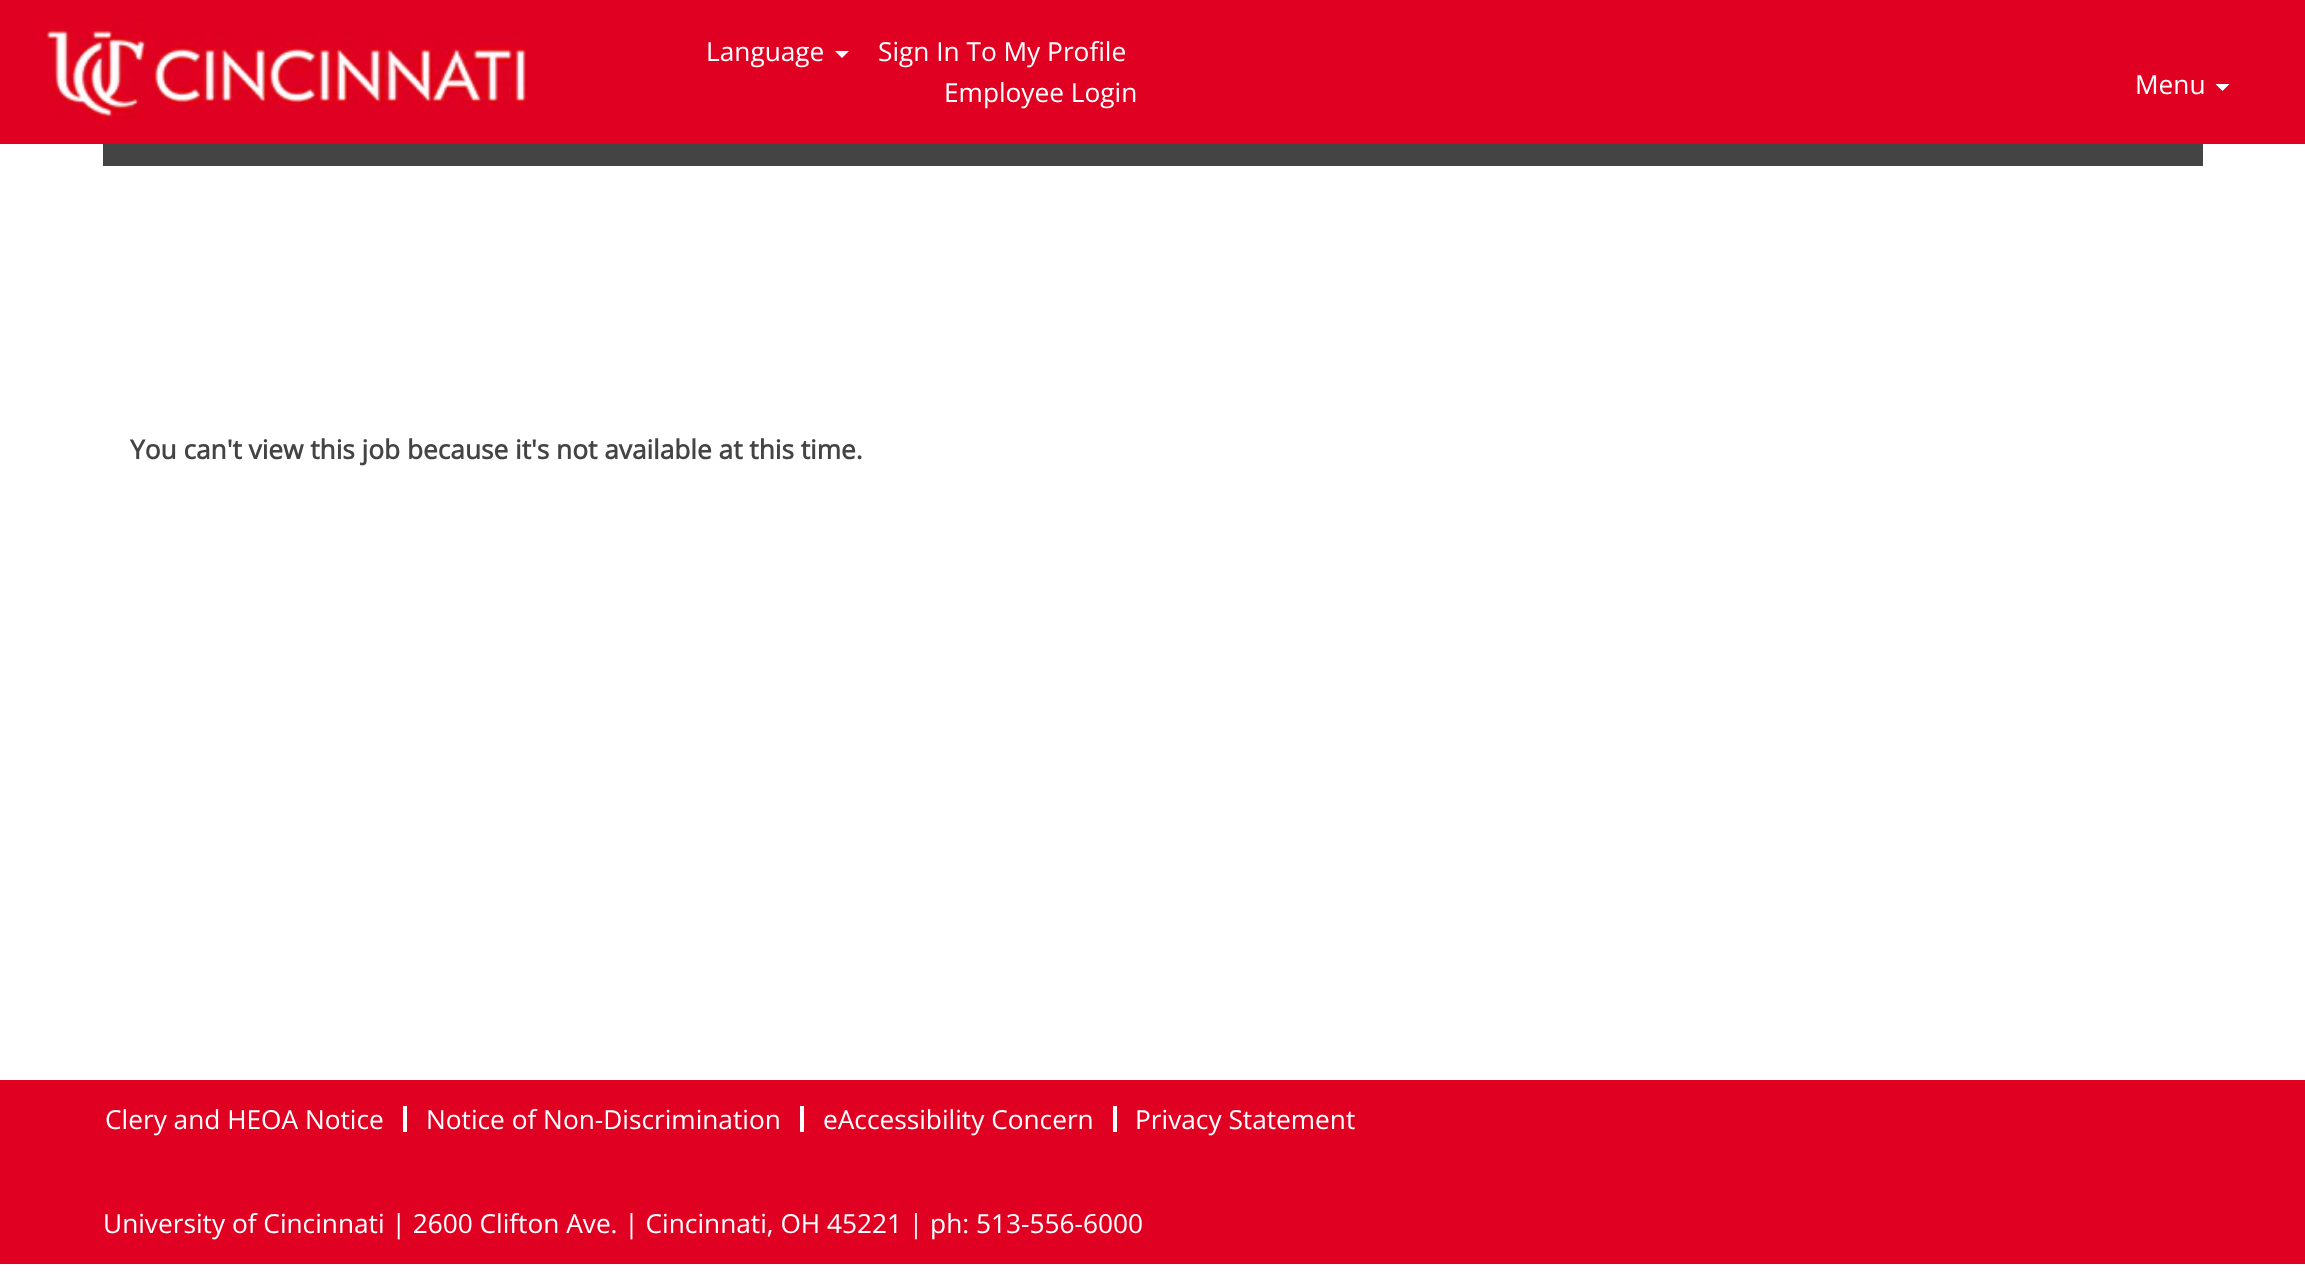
<svg xmlns="http://www.w3.org/2000/svg" width="2305" height="1279">
	<rect width="100%" height="100%" fill="#FFFFFF" />
	<rect x="0" y="0" width="2305" height="144" fill="#E00122" />
	<image x="43" y="19" width="486" height="100" href="assets/img1.png" />
	<text x="706" y="61" font-family="Open Sans" font-size="26.25" fill="#FFFFFF">Language</text>
	<path d="M835 51H849L842 58Z" fill="#FFFFFF" />
	<g font-family="Open Sans" font-size="26.25" fill="#FFFFFF">
		<text x="878" y="61">Sign In To My Profile</text>
		<text x="944" y="102">Employee Login</text>
		<text x="2135" y="94">Menu</text>
	</g>
	<path d="M2215.5 84H2229.5L2222.5 91Z" fill="#FFFFFF" />
	<rect x="103" y="144" width="2100" height="22" fill="#444444" />
	<text x="130" y="459" font-family="Open Sans" font-size="26.25" font-weight="700" fill="#444444">You can't view this job because it's not available at this time.</text>
	<rect x="0" y="1080" width="2305" height="184" fill="#E00122" />
	<rect x="403" y="1106" width="4" height="26" fill="#FFFFFF" />
	<text x="105" y="1129" font-family="Open Sans" font-size="26.25" fill="#FFFFFF">Clery and HEOA Notice</text>
	<rect x="800" y="1106" width="4" height="26" fill="#FFFFFF" />
	<text x="426" y="1129" font-family="Open Sans" font-size="26.25" fill="#FFFFFF">Notice of Non-Discrimination</text>
	<rect x="1113" y="1106" width="4" height="26" fill="#FFFFFF" />
	<g font-family="Open Sans" font-size="26.25" fill="#FFFFFF">
		<text x="823" y="1129">eAccessibility Concern</text>
		<text x="1135" y="1129">Privacy Statement</text>
		<text x="103" y="1233">University of Cincinnati | 2600 Clifton Ave. | Cincinnati, OH 45221 | ph: 513-556-6000</text>
	</g>
</svg>
